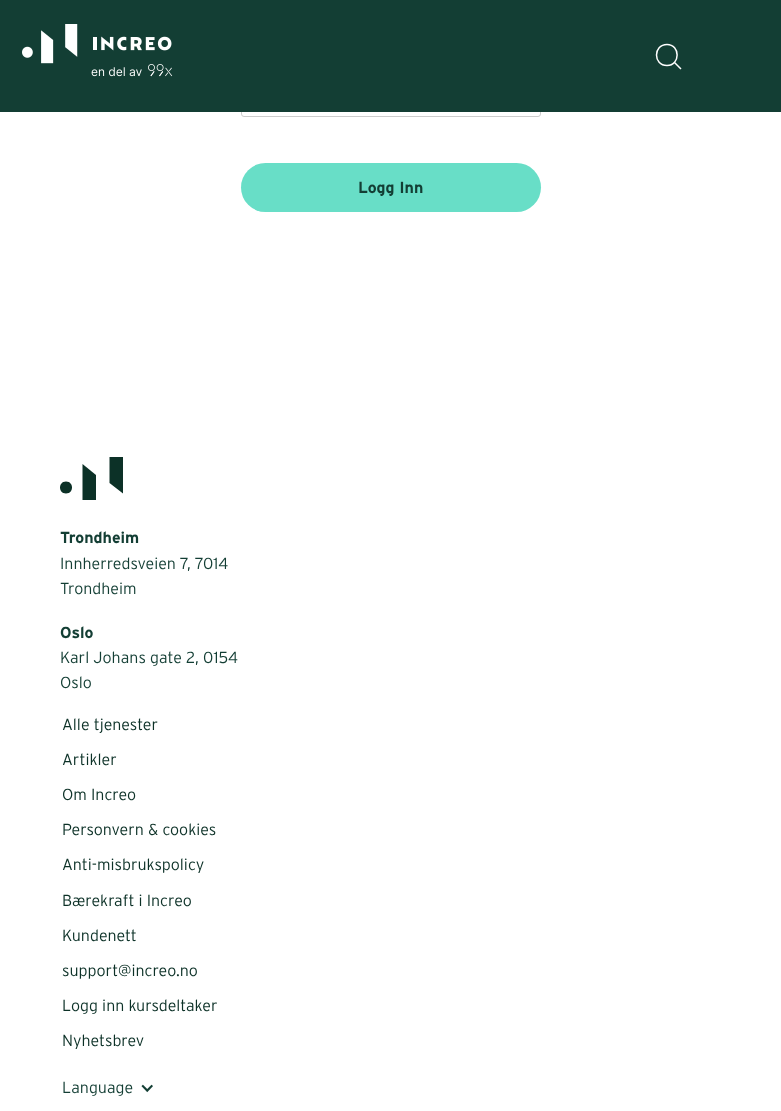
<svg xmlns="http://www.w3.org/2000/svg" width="781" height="1111">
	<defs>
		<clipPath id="clip1"><rect x="60" y="457" width="64" height="43" /></clipPath>
	</defs>
	<rect width="100%" height="100%" fill="#FFFFFF" />
	<rect x="241.5" y="79.5" width="299" height="37" rx="2.5" fill="none" stroke="#CCCCCC" />
	<rect x="0" y="0" width="781" height="112" fill="#133E34" />
	<image x="22" y="46" width="11" height="12" href="assets/img1.png" />
	<image x="41" y="24" width="131" height="40" href="assets/img2.png" />
	<image x="91" y="64" width="82" height="13" href="assets/img3.png" />
	<path d="M667 65.5C680.5 65.5 680.5 44.5 667 44.5C653 44.5 653 65.5 667 65.5ZM674 62L681 69" fill="none" stroke="#FFFFFF" stroke-width="1.5" />
	<rect x="241" y="163" width="300" height="49" rx="24.5" fill="#68DEC7" />
	<text x="358" y="193" font-family="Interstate" font-size="16" font-weight="700" fill="#133E34">Logg Inn</text>
	<g clip-path="url(#clip1)">
		<path d="M82.5 501H96V475L82.5 464Z" fill="#0C3127" />
	</g>
	<path d="M123 457H109.5V483L123 493.5ZM66 493.5C74 493.5 74 481.5 66 481.5C58 481.5 58 493.5 66 493.5Z" fill="#0C3127" />
	<text x="60" y="543" font-family="Interstate" font-size="16" font-weight="700" fill="#133E34">Trondheim</text>
	<g font-family="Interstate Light" font-size="16" font-weight="300" fill="#133E34">
		<text x="60" y="569">Innherredsveien 7, 7014</text>
		<text x="60" y="594">Trondheim</text>
	</g>
	<text x="60" y="638" font-family="Interstate" font-size="16" font-weight="700" fill="#133E34">Oslo</text>
	<g font-family="Interstate Light" font-size="16" font-weight="300" fill="#133E34">
		<text x="60" y="663">Karl Johans gate 2, 0154</text>
		<text x="60" y="688">Oslo</text>
	</g>
	<g font-family="Interstate Light" font-size="16" font-weight="300" fill="#0C3127">
		<text x="62" y="730">Alle tjenester</text>
		<text x="62" y="765">Artikler</text>
		<text x="62" y="800">Om Increo</text>
		<text x="62" y="835">Personvern &amp; cookies</text>
		<text x="62" y="870">Anti-misbrukspolicy</text>
		<text x="62" y="906">Bærekraft i Increo</text>
		<text x="62" y="941">Kundenett</text>
		<text x="62" y="976">support@increo.no</text>
		<text x="62" y="1011">Logg inn kursdeltaker</text>
		<text x="62" y="1046">Nyhetsbrev</text>
	</g>
	<text x="62" y="1093" font-family="Interstate Light" font-size="16" font-weight="300" fill="#133E34">Language</text>
	<image x="141" y="1084" width="12" height="9" href="assets/img4.png" />
</svg>
